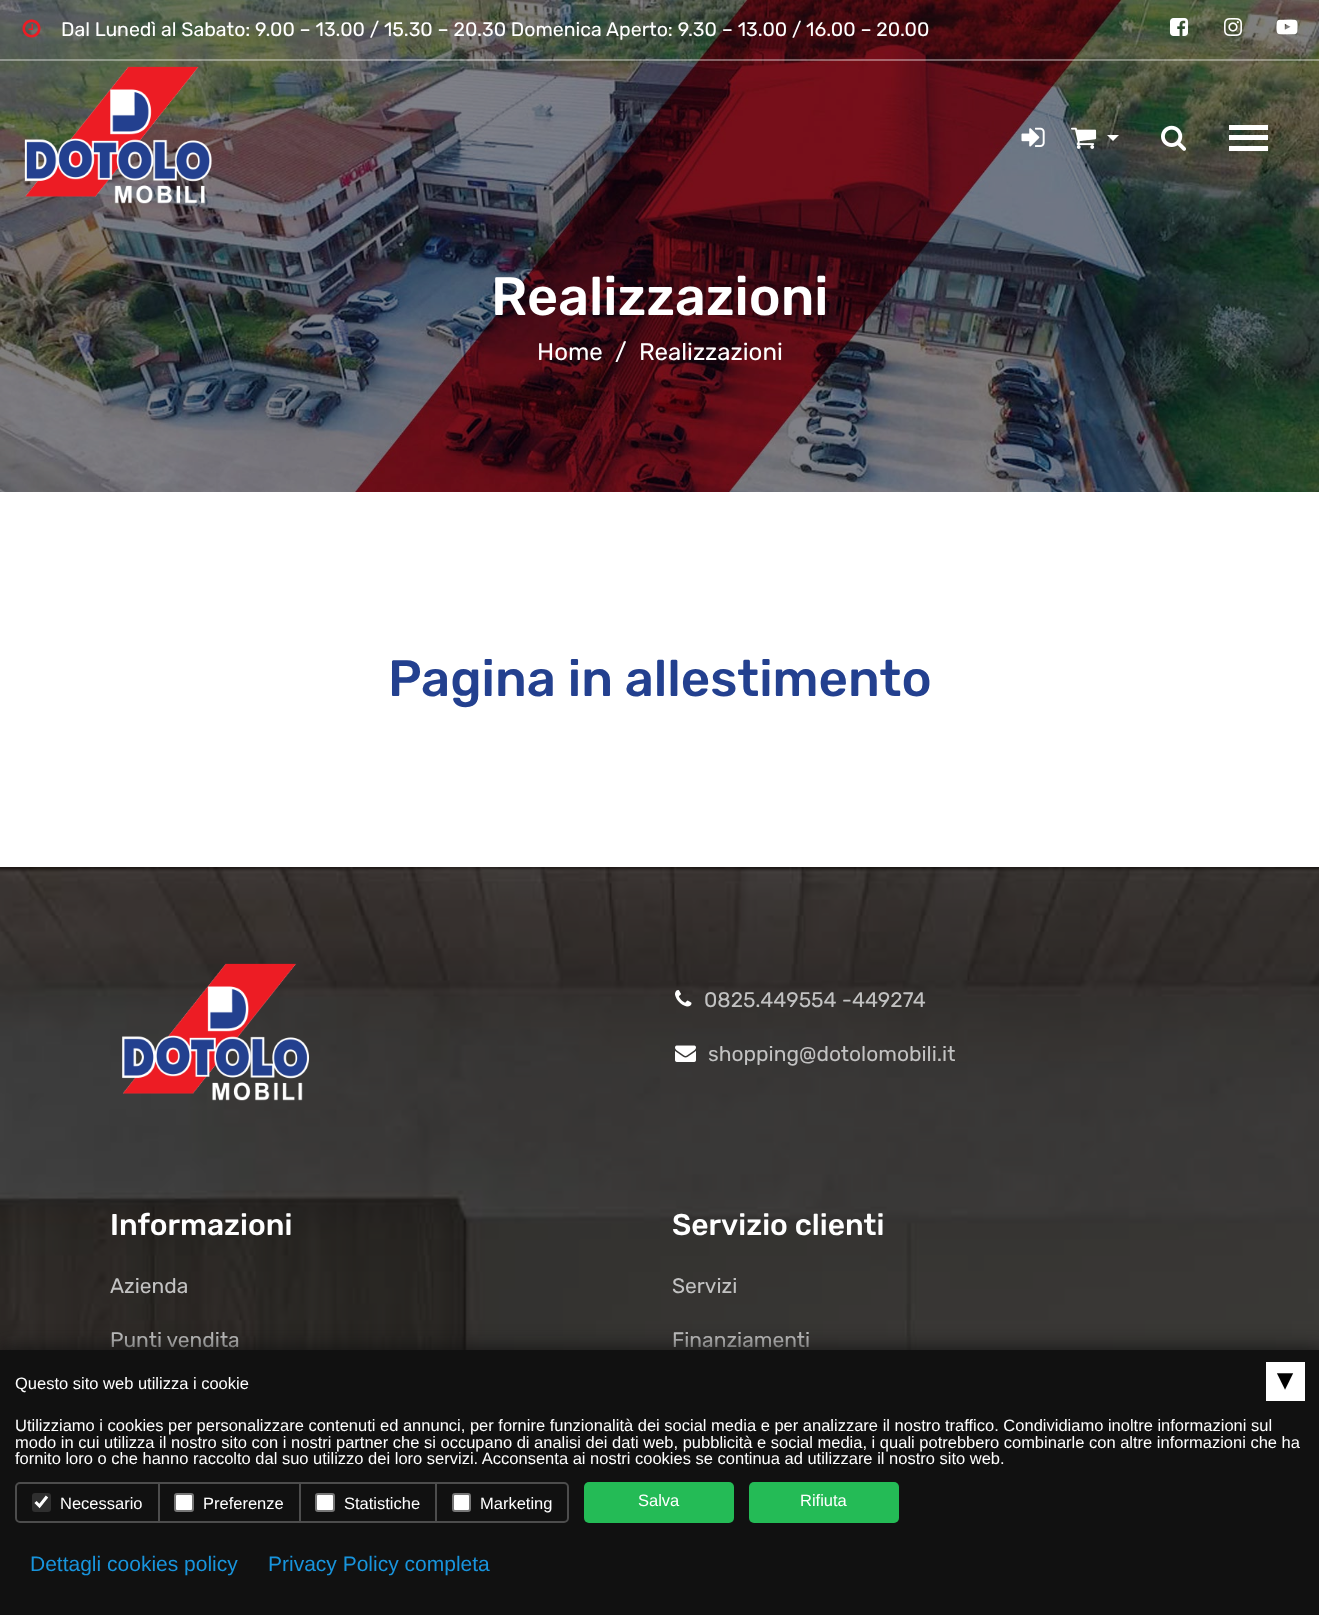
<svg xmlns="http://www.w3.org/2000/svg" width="1319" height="1615">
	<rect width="100%" height="100%" fill="#FFFFFF" />
	<image x="0" y="0" width="1319" height="492" href="assets/img9.png" />
	<rect x="0" y="59" width="1319" height="2" fill="#FFFFFF" fill-opacity="0.37" />
	<image x="22" y="19" width="19" height="19" href="assets/img1.png" />
	<text x="61" y="36" font-family="Rubik" font-size="19.5" fill="#FFFFFF">Dal Lunedì al Sabato: 9.00 – 13.00 / 15.30 – 20.30 Domenica Aperto: 9.30 – 13.00 / 16.00 – 20.00</text>
	<image x="1170" y="18" width="18" height="18" href="assets/img2.png" />
	<image x="1224" y="18" width="18" height="18" href="assets/img3.png" />
	<image x="1276" y="19" width="22" height="16" href="assets/img4.png" />
	<image x="24" y="66" width="188" height="138" href="assets/img5.png" />
	<image x="1021" y="127" width="24" height="20" href="assets/img6.png" />
	<image x="1071" y="127" width="26" height="22" href="assets/img7.png" />
	<path d="M1107 135H1119L1113 141Z" fill="#FFFFFF" />
	<image x="1161" y="125" width="25" height="26" href="assets/img8.png" />
	<rect x="1229" y="125" width="39" height="5" fill="#FFFFFF" />
	<rect x="1229" y="135" width="39" height="5" fill="#FFFFFF" />
	<rect x="1229" y="146" width="39" height="5" fill="#FFFFFF" />
	<text x="491" y="315" font-family="Rubik" font-size="54" font-weight="500" fill="#FFFFFF">Realizzazioni</text>
	<g font-family="Rubik" font-size="24" fill="#FFFFFF">
		<text x="537" y="360">Home</text>
		<text x="615" y="360">/</text>
		<text x="639" y="360">Realizzazioni</text>
	</g>
	<text x="388" y="696" font-family="Rubik" font-size="51" font-weight="500" fill="#23408F">Pagina in allestimento</text>
	<image x="0" y="867" width="1319" height="483" href="assets/img10.png" />
	<image x="122" y="963" width="187" height="138" href="assets/img11.png" />
	<image x="675" y="990" width="17" height="17" href="assets/img12.png" />
	<text x="704" y="1007" font-family="Rubik" font-size="21" fill="#C2C2C2">0825.449554 -449274</text>
	<image x="675" y="1045" width="21" height="17" href="assets/img13.png" />
	<text x="708" y="1061" font-family="Rubik" font-size="21" fill="#C2C2C2">shopping@dotolomobili.it</text>
	<text x="110" y="1235" font-family="Rubik" font-size="30" font-weight="500" fill="#FFFFFF">Informazioni</text>
	<g font-family="Rubik" font-size="21" fill="#C2C2C2">
		<text x="110" y="1293">Azienda</text>
		<text x="110" y="1347">Punti vendita</text>
	</g>
	<text x="672" y="1235" font-family="Rubik" font-size="30" font-weight="500" fill="#FFFFFF">Servizio clienti</text>
	<g font-family="Rubik" font-size="21" fill="#C2C2C2">
		<text x="672" y="1293">Servizi</text>
		<text x="672" y="1347">Finanziamenti</text>
	</g>
	<rect x="0" y="1350" width="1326" height="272" fill="#121212" filter="blur(10.5px)" />
	<rect x="0" y="1350" width="1319" height="265" fill="#111111" />
	<text x="15" y="1389" font-family="Liberation Sans" font-size="16.5" fill="#FFFFFF">Questo sito web utilizza i cookie</text>
	<rect x="1266" y="1362" width="39" height="39" fill="#FFFFFF" />
	<text x="1293" y="1373" transform="rotate(180 1293 1373)" font-family="DejaVu Sans" font-size="30" font-weight="700" fill="#000000">▴</text>
	<g font-family="Liberation Sans" font-size="16.5" fill="#FFFFFF">
		<text x="15" y="1431">Utilizziamo i cookies per personalizzare contenuti ed annunci, per fornire funzionalità dei social media e per analizzare il nostro traffico. Condividiamo inoltre informazioni sul</text>
		<text x="15" y="1448">modo in cui utilizza il nostro sito con i nostri partner che si occupano di analisi dei dati web, pubblicità e social media, i quali potrebbero combinarle con altre informazioni che ha</text>
		<text x="15" y="1464">fornito loro o che hanno raccolto dal suo utilizzo dei loro servizi. Acconsenta ai nostri cookies se continua ad utilizzare il nostro sito web.</text>
	</g>
	<rect x="16" y="1483" width="552" height="39" rx="4" fill="none" stroke="#4D4D4D" stroke-width="2" />
	<rect x="158" y="1484" width="2" height="37" fill="#4D4D4D" />
	<rect x="32" y="1493" width="19" height="19" rx="3" fill="#2F2F2F" />
	<path d="M35.5 1502L39.5 1506L47 1496.5" fill="none" stroke="#FFFFFF" stroke-width="3.1" />
	<text x="60" y="1509" font-family="Liberation Sans" font-size="16.5" fill="#FFFFFF">Necessario</text>
	<rect x="299" y="1484" width="2" height="37" fill="#4D4D4D" />
	<rect x="175" y="1494" width="18" height="17" rx="2" fill="#FFFFFF" stroke="#767676" stroke-width="2" />
	<text x="203" y="1509" font-family="Liberation Sans" font-size="16.5" fill="#FFFFFF">Preferenze</text>
	<rect x="435" y="1484" width="2" height="37" fill="#4D4D4D" />
	<rect x="316" y="1494" width="18" height="17" rx="2" fill="#FFFFFF" stroke="#767676" stroke-width="2" />
	<text x="344" y="1509" font-family="Liberation Sans" font-size="16.5" fill="#FFFFFF">Statistiche</text>
	<rect x="453" y="1494" width="17" height="17" rx="2" fill="#FFFFFF" stroke="#767676" stroke-width="2" />
	<text x="480" y="1509" font-family="Liberation Sans" font-size="16.5" fill="#FFFFFF">Marketing</text>
	<rect x="584" y="1482" width="150" height="41" rx="5" fill="#24BB56" />
	<text x="638" y="1506" font-family="Liberation Sans" font-size="16.5" fill="#FFFFFF">Salva</text>
	<rect x="749" y="1482" width="150" height="41" rx="5" fill="#24BB56" />
	<text x="800" y="1506" font-family="Liberation Sans" font-size="16.5" fill="#FFFFFF">Rifiuta</text>
	<g font-family="Liberation Sans" font-size="21" fill="#1894DC">
		<text x="30" y="1571">Dettagli cookies policy</text>
		<text x="268" y="1571">Privacy Policy completa</text>
	</g>
</svg>
